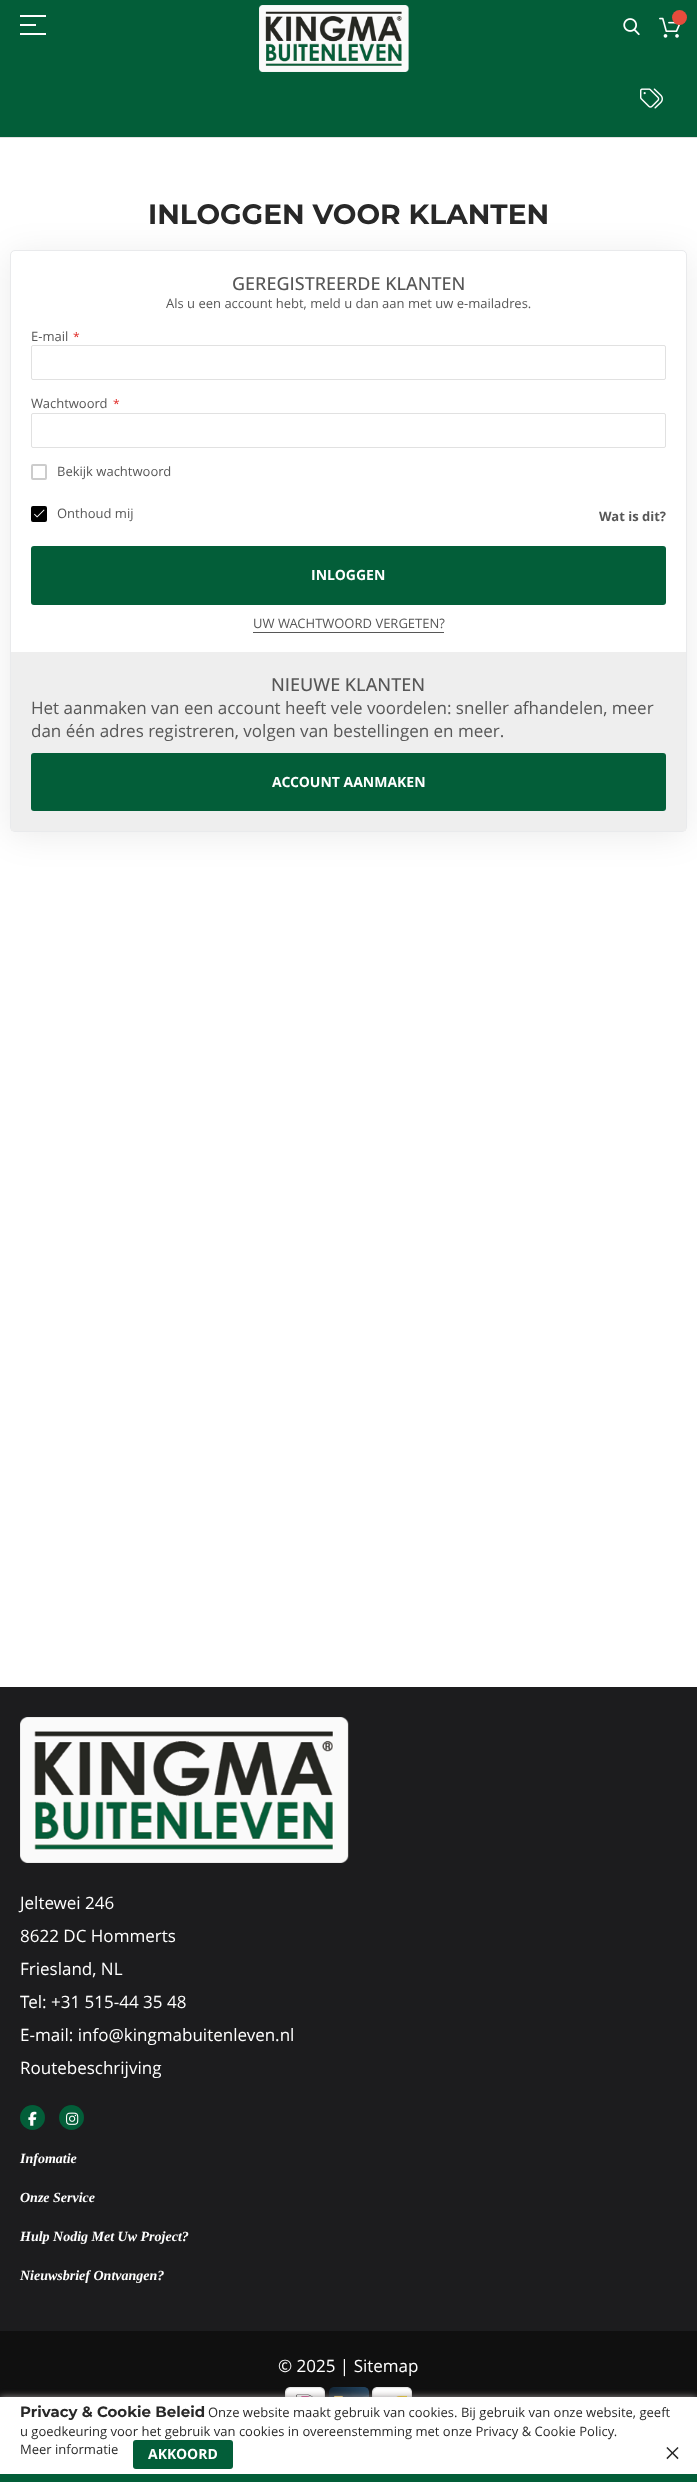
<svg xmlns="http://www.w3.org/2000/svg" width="697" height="2482">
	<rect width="100%" height="100%" fill="#FFFFFF" />
	<rect x="0" y="0" width="697" height="137" fill="#035E39" />
	<rect x="0" y="137" width="697" height="1" fill="#E1E1E1" />
	<rect x="20" y="15" width="26" height="2" fill="#FFFFFF" />
	<rect x="20" y="33" width="26" height="2" fill="#FFFFFF" />
	<rect x="20" y="24" width="16" height="2" fill="#FFFFFF" />
	<image x="259" y="5" width="150" height="67" href="assets/img1.png" />
	<image x="623" y="18" width="17" height="18" href="assets/img2.png" />
	<image x="659" y="17" width="22" height="21" href="assets/img3.png" />
	<circle cx="679.5" cy="17.5" r="7.5" fill="#E74C3C" />
	<image x="640" y="88" width="23" height="21" href="assets/img4.png" />
	<text x="148" y="224" font-family="Montserrat" font-size="28" font-weight="700" fill="#282828">INLOGGEN VOOR KLANTEN</text>
	<rect x="10" y="254" width="677" height="582" rx="5" fill="#000000" fill-opacity="0.08" filter="blur(17px)" />
	<rect x="10.5" y="250.5" width="676" height="581" rx="4.5" fill="#FFFFFF" stroke="#E9EAEC" />
	<text x="232" y="290" font-family="Open Sans" font-size="18" font-weight="500" fill="#575757">GEREGISTREERDE KLANTEN</text>
	<g font-family="Open Sans" font-size="13" fill="#575757">
		<text x="166" y="308">Als u een account hebt, meld u dan aan met uw e-mailadres.</text>
		<text x="31" y="341">E-mail</text>
	</g>
	<text x="73" y="341" font-family="Open Sans" font-size="12" fill="#E02B27">*</text>
	<rect x="31.5" y="345.5" width="634" height="34" rx="1.5" fill="none" stroke="#E1E1E1" />
	<text x="31" y="408" font-family="Open Sans" font-size="13" fill="#575757">Wachtwoord</text>
	<text x="113" y="408" font-family="Open Sans" font-size="12" fill="#E02B27">*</text>
	<rect x="31.5" y="413.5" width="634" height="34" rx="1.5" fill="none" stroke="#E1E1E1" />
	<rect x="32" y="465" width="14" height="14" rx="1" fill="none" stroke="#CCCCCC" stroke-width="2" />
	<text x="57" y="476" font-family="Open Sans" font-size="13" fill="#575757">Bekijk wachtwoord</text>
	<rect x="32" y="507" width="14" height="14" rx="1" fill="#000000" stroke="#000000" stroke-width="2" />
	<image x="34" y="509" width="11" height="9" href="assets/img5.png" />
	<text x="57" y="518" font-family="Open Sans" font-size="13" fill="#575757">Onthoud mij</text>
	<text x="599" y="521" font-family="Open Sans" font-size="13" font-weight="700" fill="#575757">Wat is dit?</text>
	<rect x="31" y="546" width="635" height="59" rx="3" fill="#035E39" />
	<text x="311" y="580" font-family="Open Sans" font-size="14" font-weight="700" fill="#FFFFFF">INLOGGEN</text>
	<text x="253" y="628" font-family="Open Sans" font-size="13" fill="#575757">UW WACHTWOORD VERGETEN?</text>
	<rect x="253" y="632" width="191" height="1" fill="#575757" />
	<rect x="11" y="652" width="675" height="179" fill="#EEEEEE" />
	<text x="271" y="691" font-family="Open Sans" font-size="18" font-weight="500" fill="#575757">NIEUWE KLANTEN</text>
	<g font-family="Open Sans" font-size="17" fill="#575757">
		<text x="31" y="714">Het aanmaken van een account heeft vele voordelen: sneller afhandelen, meer</text>
		<text x="31" y="737">dan één adres registreren, volgen van bestellingen en meer.</text>
	</g>
	<rect x="31" y="753" width="635" height="58" rx="3" fill="#035E39" />
	<text x="272" y="787" font-family="Open Sans" font-size="14" font-weight="700" fill="#FFFFFF">ACCOUNT AANMAKEN</text>
	<rect x="0" y="1687" width="697" height="644" fill="#1C1C1E" />
	<image x="20" y="1717" width="329" height="146" href="assets/img6.png" />
	<g font-family="Open Sans" font-size="17" fill="#FFFFFF">
		<text x="20" y="1909">Jeltewei 246</text>
		<text x="20" y="1942">8622 DC Hommerts</text>
		<text x="20" y="1975">Friesland, NL</text>
		<text x="20" y="2008">Tel: +31 515-44 35 48</text>
		<text x="20" y="2041">E-mail: info@kingmabuitenleven.nl</text>
		<text x="20" y="2074">Routebeschrijving</text>
	</g>
	<circle cx="32.5" cy="2117.5" r="12.5" fill="#035E39" />
	<image x="28" y="2111" width="9" height="15" href="assets/img7.png" />
	<circle cx="71.5" cy="2117.5" r="12.5" fill="#035E39" />
	<image x="66" y="2112" width="13" height="13" href="assets/img8.png" />
	<g font-family="Liberation Serif" font-size="14" font-weight="700" font-style="italic" fill="#FFFFFF">
		<text x="20" y="2163">Infomatie</text>
		<text x="20" y="2202">Onze Service</text>
		<text x="20" y="2241">Hulp Nodig Met Uw Project?</text>
		<text x="20" y="2280">Nieuwsbrief Ontvangen?</text>
	</g>
	<rect x="0" y="2331" width="697" height="66" fill="#101010" />
	<text x="278" y="2372" font-family="Open Sans" font-size="17" fill="#FFFFFF">© 2025 | Sitemap</text>
	<image x="285" y="2387" width="40" height="10" href="assets/img9.png" />
	<image x="329" y="2387" width="40" height="10" href="assets/img10.png" />
	<image x="372" y="2387" width="40" height="10" href="assets/img11.png" />
	<rect x="0" y="2397" width="697" height="85" fill="#989393" filter="blur(3.5px)" />
	<rect x="0" y="2397" width="697" height="77" fill="#FFFFFF" />
	<rect x="0" y="2474" width="697" height="8" fill="#035E39" />
	<text x="20" y="2417" font-family="Montserrat" font-size="15" font-weight="700" fill="#282828">Privacy &amp; Cookie Beleid</text>
	<g font-family="Open Sans" font-size="13" fill="#282828">
		<text x="208" y="2417">Onze website maakt gebruik van cookies. Bij gebruik van onze website, geeft</text>
		<text x="20" y="2436">u goedkeuring voor het gebruik van cookies in overeenstemming met onze Privacy &amp; Cookie Policy.</text>
		<text x="20" y="2454">Meer informatie</text>
	</g>
	<rect x="133" y="2440" width="100" height="29" rx="3" fill="#035E39" />
	<text x="148" y="2459" font-family="Open Sans" font-size="14" font-weight="700" fill="#FFFFFF">AKKOORD</text>
	<text x="664" y="2463" font-family="Liberation Serif" font-size="30" fill="#282828">×</text>
</svg>
